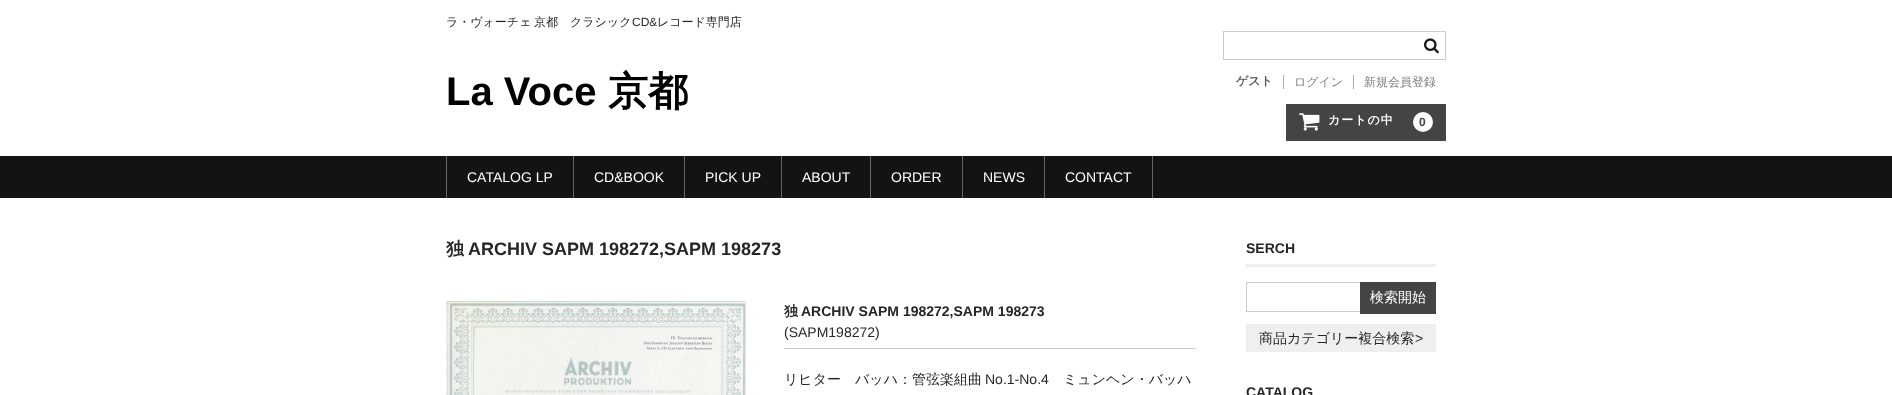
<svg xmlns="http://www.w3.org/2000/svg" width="1892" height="395">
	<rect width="100%" height="100%" fill="#FFFFFF" />
	<text x="446" y="26" word-spacing="-1" font-family="WenQuanYi Zen Hei" font-size="12" font-weight="500" fill="#262626">ラ・ヴォーチェ 京都　クラシック</text>
	<text x="632" y="26" font-family="Liberation Sans" font-size="12" fill="#262626">CD&amp;</text>
	<text x="657" y="26" font-family="WenQuanYi Zen Hei" font-size="12" font-weight="500" fill="#262626">レコード専門店</text>
	<text x="446" y="105" font-family="Liberation Sans" font-size="40" font-weight="700" fill="#000000">La Voce</text>
	<text x="608" y="105" font-family="WenQuanYi Zen Hei" font-size="40" font-weight="700" fill="#000000">京都</text>
	<rect x="1223.5" y="31.5" width="222" height="28" fill="none" stroke="#CCCCCC" />
	<image x="1424" y="38" width="15" height="16" href="assets/img1.png" />
	<rect x="1283" y="75" width="1" height="14" fill="#AAAAAA" />
	<text x="1236" y="85" font-family="WenQuanYi Zen Hei" font-size="12" font-weight="700" fill="#565656">ゲスト</text>
	<rect x="1353" y="75" width="1" height="14" fill="#AAAAAA" />
	<g font-family="WenQuanYi Zen Hei" font-size="12" font-weight="500" fill="#808080">
		<text x="1294" y="86">ログイン</text>
		<text x="1364" y="86">新規会員登録</text>
	</g>
	<rect x="1286" y="104" width="160" height="37" fill="#444444" />
	<image x="1299" y="113" width="21" height="18" href="assets/img2.png" />
	<text x="1328" y="124" font-family="WenQuanYi Zen Hei" font-size="12" font-weight="700" letter-spacing="1" fill="#FFFFFF">カートの中</text>
	<circle cx="1423" cy="122" r="10" fill="#FFFFFF" />
	<text x="1419" y="126" font-family="Liberation Sans" font-size="12" font-weight="700" letter-spacing="1" fill="#444444">0</text>
	<rect x="0" y="156" width="1892" height="42" fill="#131313" />
	<rect x="573" y="156" width="1" height="42" fill="#666666" />
	<rect x="446" y="156" width="1" height="42" fill="#666666" />
	<text x="467" y="182" font-family="Liberation Sans" font-size="14" fill="#FFFFFF">CATALOG LP</text>
	<rect x="684" y="156" width="1" height="42" fill="#666666" />
	<text x="594" y="182" font-family="Liberation Sans" font-size="14" fill="#FFFFFF">CD&amp;BOOK</text>
	<rect x="781" y="156" width="1" height="42" fill="#666666" />
	<text x="705" y="182" font-family="Liberation Sans" font-size="14" fill="#FFFFFF">PICK UP</text>
	<rect x="870" y="156" width="1" height="42" fill="#666666" />
	<text x="802" y="182" font-family="Liberation Sans" font-size="14" fill="#FFFFFF">ABOUT</text>
	<rect x="962" y="156" width="1" height="42" fill="#666666" />
	<text x="891" y="182" font-family="Liberation Sans" font-size="14" fill="#FFFFFF">ORDER</text>
	<rect x="1044" y="156" width="1" height="42" fill="#666666" />
	<text x="983" y="182" font-family="Liberation Sans" font-size="14" fill="#FFFFFF">NEWS</text>
	<rect x="1152" y="156" width="1" height="42" fill="#666666" />
	<text x="1065" y="182" font-family="Liberation Sans" font-size="14" fill="#FFFFFF">CONTACT</text>
	<text x="446" y="255" font-family="WenQuanYi Zen Hei" font-size="18" font-weight="700" fill="#262626">独</text>
	<text x="468" y="255" font-family="Liberation Sans" font-size="18" font-weight="700" fill="#262626">ARCHIV SAPM 198272,SAPM 198273</text>
	<image x="446" y="301" width="300" height="94" href="assets/img3.png" />
	<text x="784" y="316" font-family="WenQuanYi Zen Hei" font-size="14" font-weight="700" fill="#262626">独</text>
	<text x="801" y="316" font-family="Liberation Sans" font-size="14" font-weight="700" fill="#262626">ARCHIV SAPM 198272,SAPM 198273</text>
	<rect x="784" y="348" width="412" height="1" fill="#CCCCCC" />
	<text x="784" y="337" font-family="Liberation Sans" font-size="14" fill="#262626">(SAPM198272)</text>
	<text x="784" y="384" font-family="WenQuanYi Zen Hei" font-size="14" font-weight="500" fill="#262626">リヒター　バッハ：管弦楽組曲</text>
	<text x="985" y="384" font-family="Liberation Sans" font-size="14" fill="#262626">No.1-No.4</text>
	<text x="1063" y="384" font-family="WenQuanYi Zen Hei" font-size="14" font-weight="500" fill="#262626">ミュンヘン・バッハ</text>
	<rect x="1246" y="264" width="190" height="3" fill="#EEEEEE" />
	<text x="1246" y="253" font-family="Liberation Sans" font-size="14" font-weight="700" fill="#262626">SERCH</text>
	<rect x="1246" y="282" width="114" height="1" fill="#CCCCCC" />
	<rect x="1246" y="311" width="114" height="1" fill="#CCCCCC" />
	<rect x="1246" y="282" width="1" height="30" fill="#CCCCCC" />
	<rect x="1360" y="282" width="76" height="32" fill="#444444" />
	<text x="1370" y="302" font-family="WenQuanYi Zen Hei" font-size="14" font-weight="500" fill="#FFFFFF">検索開始</text>
	<rect x="1246" y="324" width="190" height="28" fill="#EFEFEF" />
	<text x="1259" y="343" font-family="WenQuanYi Zen Hei" font-size="14" font-weight="500" fill="#262626">商品カテゴリー複合検索</text>
	<text x="1415" y="343" font-family="Liberation Sans" font-size="14" fill="#262626">&gt;</text>
	<text x="1246" y="397" font-family="Liberation Sans" font-size="14" font-weight="700" fill="#262626">CATALOG</text>
</svg>
